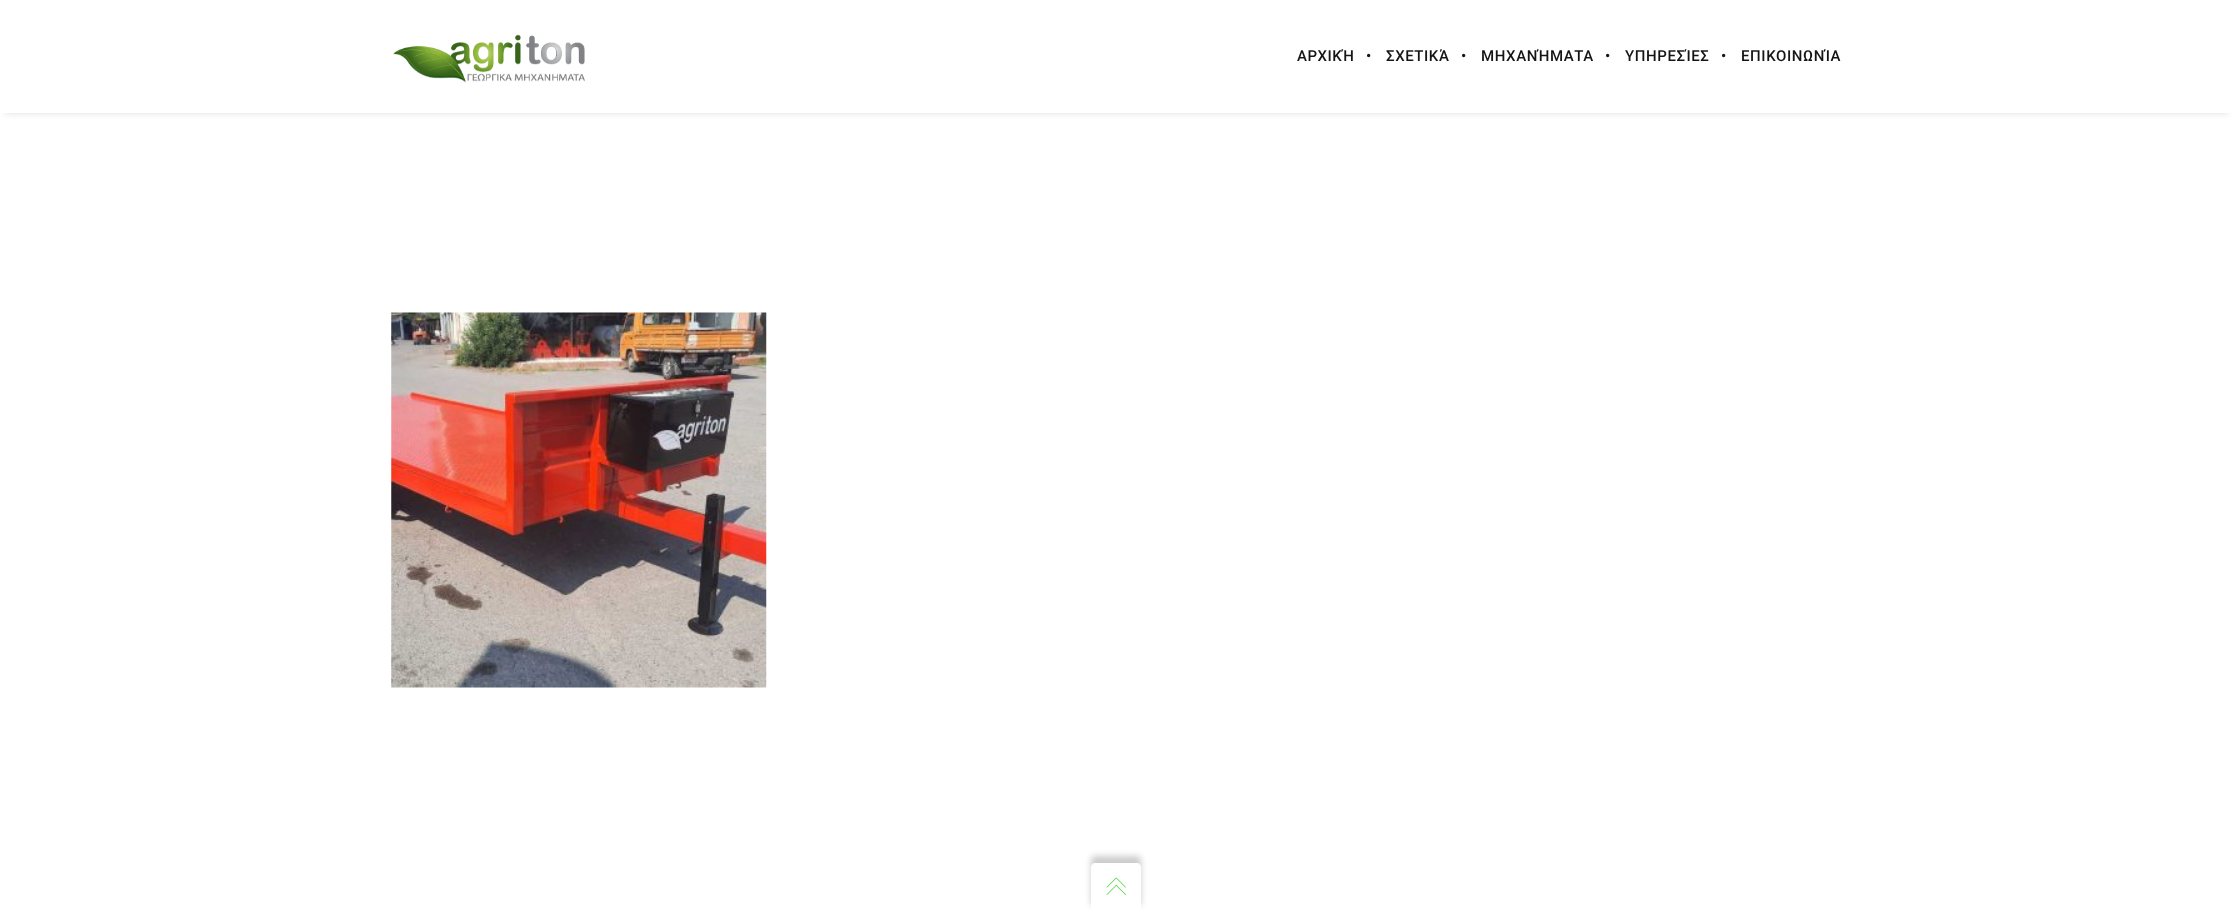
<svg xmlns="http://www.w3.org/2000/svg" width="2232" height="917">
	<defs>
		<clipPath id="clip1"><path d="M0 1H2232V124H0ZM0 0H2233V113H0Z" clip-rule="evenodd" /></clipPath>
	</defs>
	<rect width="100%" height="100%" fill="#FFFFFF" />
	<g clip-path="url(#clip1)">
		<rect x="5" y="11" width="2223" height="103" fill="#000000" fill-opacity="0.1" filter="blur(3px)" />
	</g>
	<image x="393" y="34" width="192" height="49" href="assets/img1.png" />
	<g font-family="Roboto" font-size="15" font-weight="500" letter-spacing="0.6" fill="#151515">
		<text x="1297" y="61">ΑΡΧΙΚΉ</text>
		<text x="1366" y="61">•</text>
		<text x="1386" y="61">ΣΧΕΤΙΚΆ</text>
		<text x="1461" y="61">•</text>
		<text x="1481" y="61">ΜΗΧΑΝΉΜΑΤΑ</text>
		<text x="1605" y="61">•</text>
		<text x="1625" y="61">ΥΠΗΡΕΣΊΕΣ</text>
		<text x="1721" y="61">•</text>
		<text x="1741" y="61">ΕΠΙΚΟΙΝΩΝΊΑ</text>
	</g>
	<image x="391" y="312" width="376" height="376" href="assets/img2.png" />
	<rect x="1091" y="856" width="50" height="50" rx="4" fill="#000000" fill-opacity="0.2" filter="blur(3px)" />
	<path d="M1095 863H1137C1139 863 1141 865 1141 867V913H1091V867C1091 865 1093 863 1095 863Z" fill="#FFFFFF" />
	<image x="1106" y="877" width="20" height="18" href="assets/img3.png" />
</svg>
